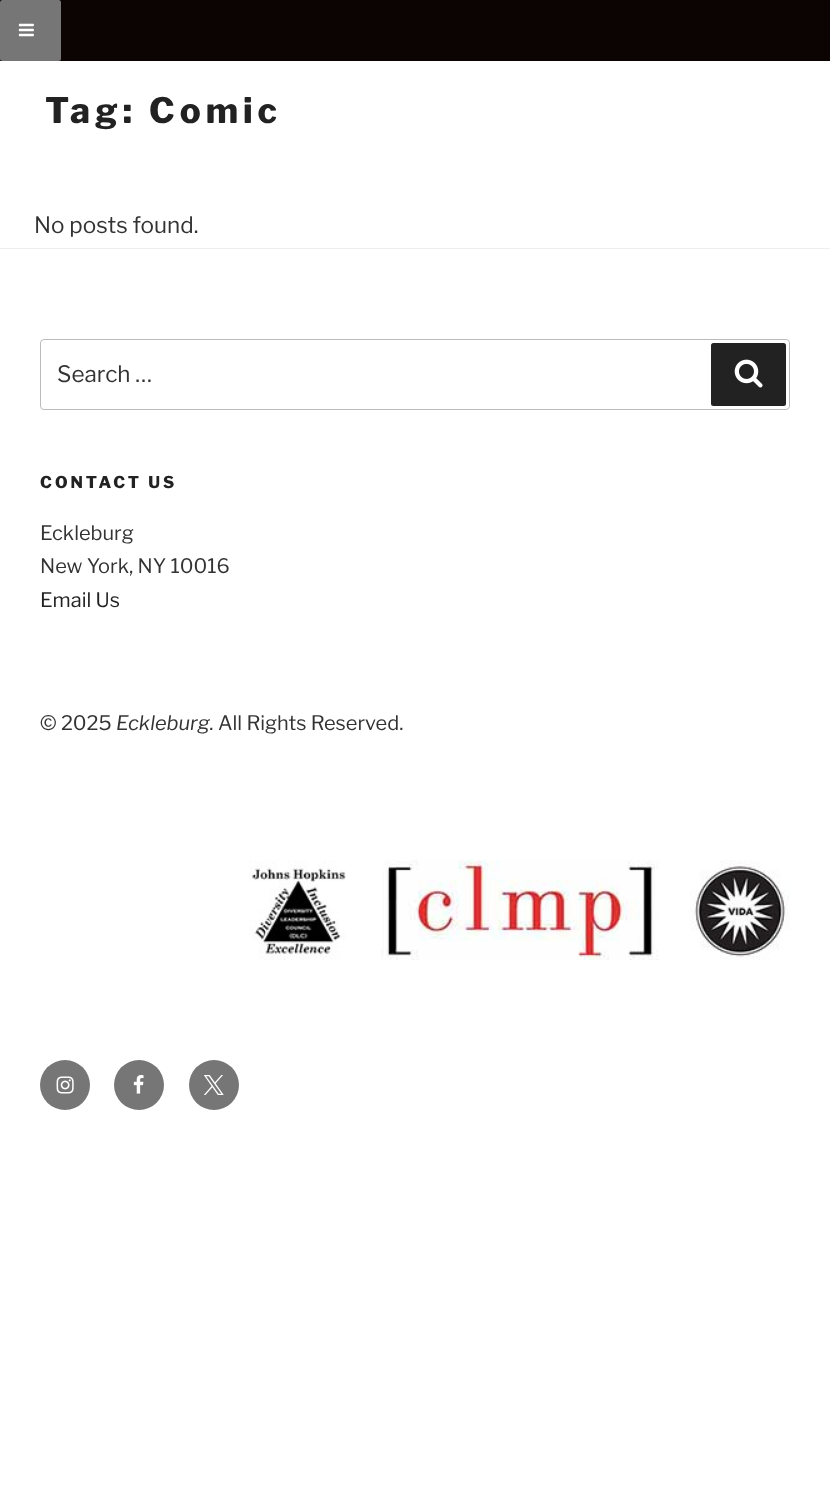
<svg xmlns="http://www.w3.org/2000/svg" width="830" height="1507">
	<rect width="100%" height="100%" fill="#FFFFFF" />
	<rect x="0" y="0" width="830" height="61" fill="#0C0303" />
	<rect x="0" y="0" width="61" height="61" rx="2.5" fill="#767676" />
	<image x="18" y="23" width="16" height="14" href="assets/img1.png" />
	<text x="45" y="123" font-family="Libre Franklin" font-size="35" font-weight="100" letter-spacing="5" fill="#222222">Tag: Comic</text>
	<text x="34" y="233" font-family="'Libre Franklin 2'" font-size="22.5" font-weight="100" fill="#333333">No posts found.</text>
	<rect x="0" y="248" width="830" height="1" fill="#EEEEEE" />
	<rect x="40.5" y="339.5" width="749" height="70" rx="3.5" fill="none" stroke="#BBBBBB" />
	<text x="57" y="382" font-family="'Libre Franklin 2'" font-size="22.5" font-weight="100" fill="#333333">Search …</text>
	<rect x="711" y="343" width="75" height="63" rx="2.5" fill="#222222" />
	<image x="734" y="359" width="29" height="29" href="assets/img2.png" />
	<text x="40" y="488" font-family="Libre Franklin" font-size="16.25" font-weight="100" letter-spacing="3" fill="#222222">CONTACT US</text>
	<g font-family="'Libre Franklin 2'" font-size="20" font-weight="100" fill="#333333">
		<text x="40" y="540">Eckleburg</text>
		<text x="40" y="573">New York, NY 10016</text>
	</g>
	<text x="40" y="607" font-family="'Libre Franklin 2'" font-size="20" font-weight="100" fill="#222222">Email Us</text>
	<text x="40" y="730" font-family="'Libre Franklin 2'" font-size="20" font-weight="100" fill="#333333">© 2025</text>
	<text x="116" y="730" font-family="Libre Franklin" font-size="20" font-weight="100" font-style="italic" fill="#333333">Eckleburg.</text>
	<text x="218" y="730" font-family="'Libre Franklin 2'" font-size="20" font-weight="100" fill="#333333">All Rights Reserved.</text>
	<image x="249" y="860" width="97" height="100" href="assets/img3.png" />
	<image x="381" y="860" width="278" height="100" href="assets/img4.png" />
	<image x="690" y="860" width="100" height="100" href="assets/img5.png" />
	<circle cx="65" cy="1085" r="25" fill="#767676" />
	<image x="56" y="1076" width="18" height="18" href="assets/img6.png" />
	<circle cx="139" cy="1085" r="25" fill="#767676" />
	<image x="133" y="1075" width="11" height="19" href="assets/img7.png" />
	<circle cx="214" cy="1085" r="25" fill="#767676" />
	<image x="204" y="1075" width="20" height="20" href="assets/img8.png" />
</svg>
